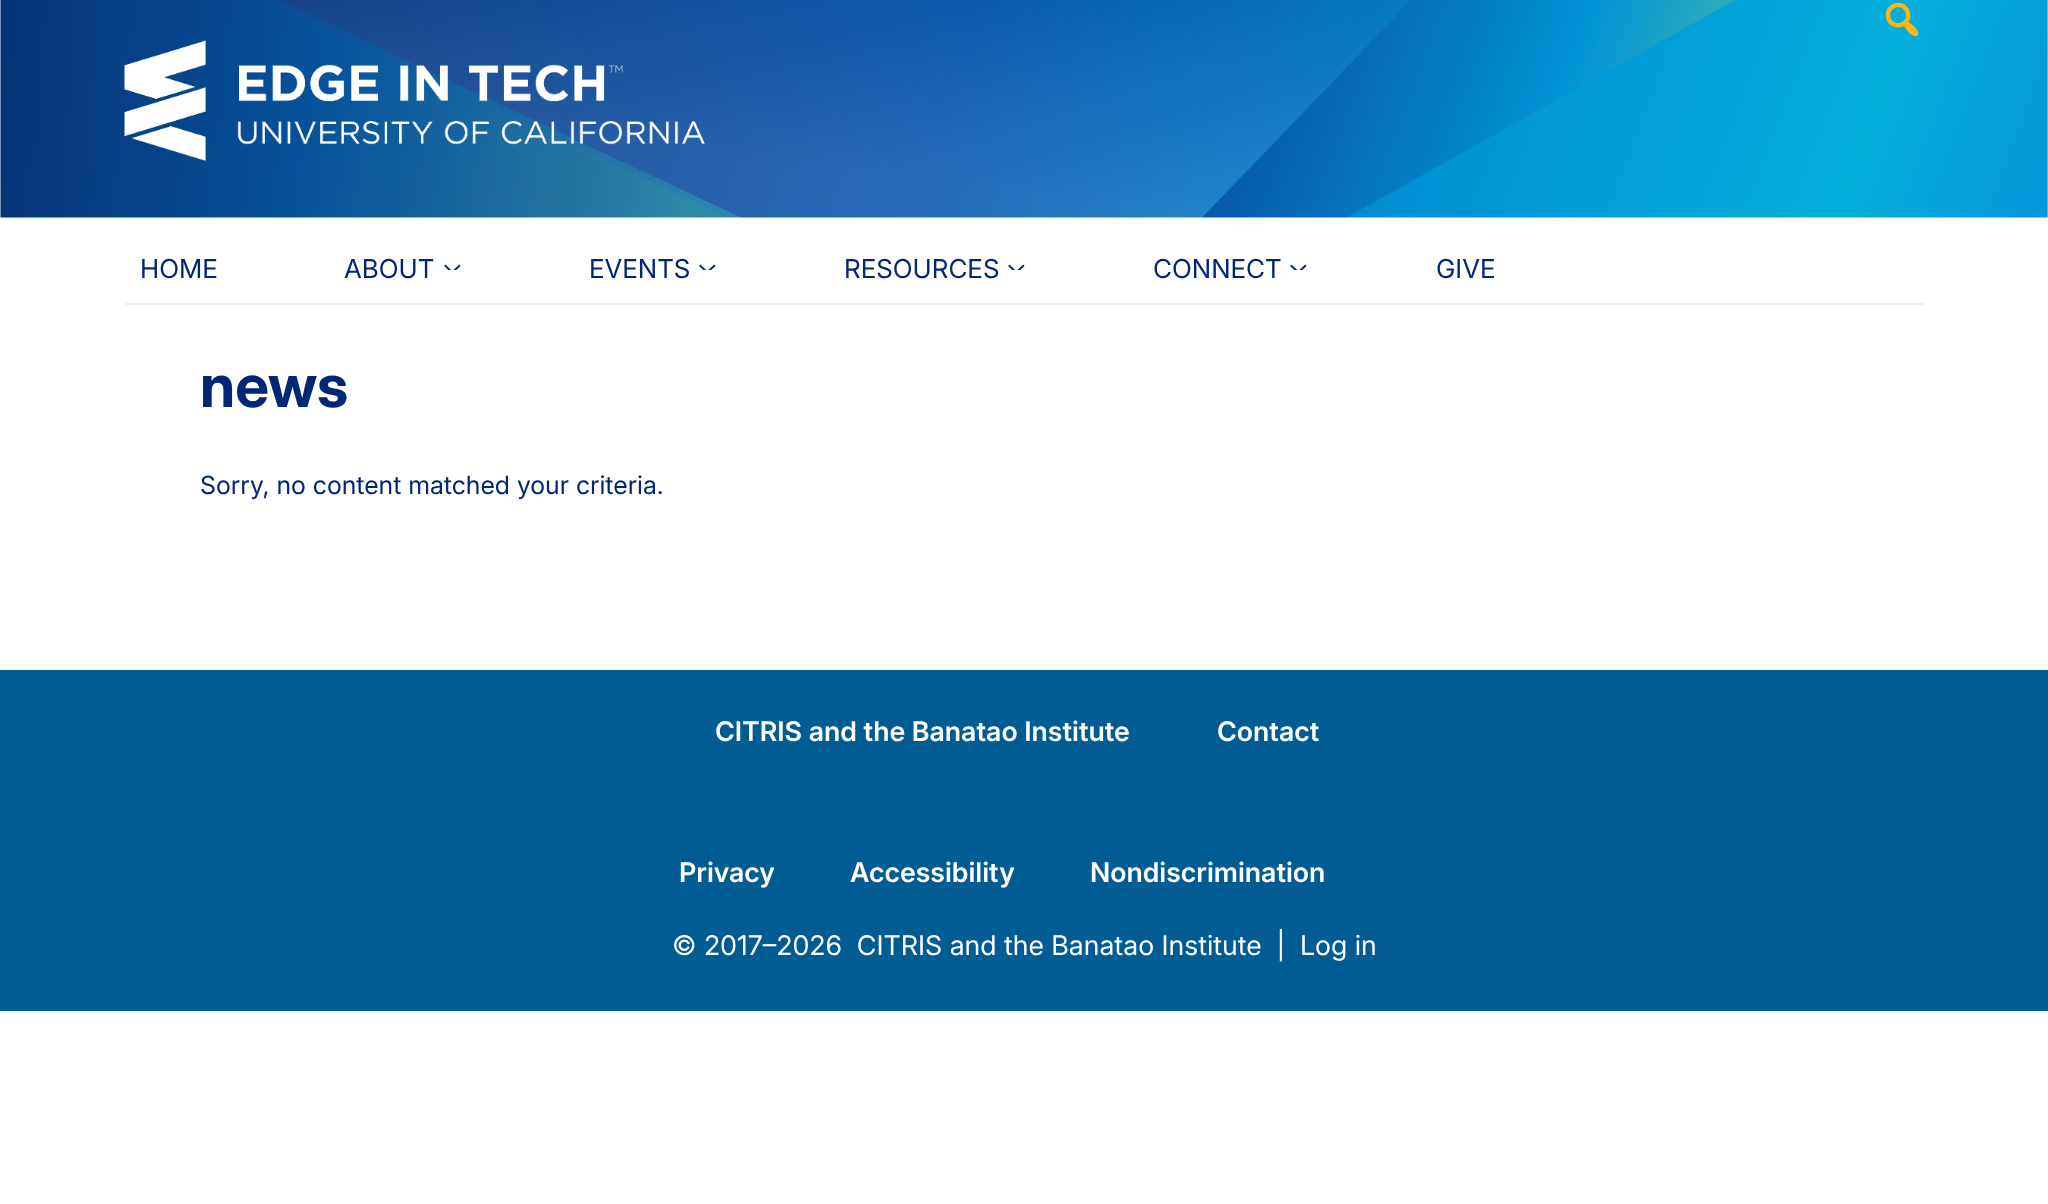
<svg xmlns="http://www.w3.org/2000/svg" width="2048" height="1204">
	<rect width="100%" height="100%" fill="#FFFFFF" />
	<image x="0" y="0" width="2048" height="218" href="assets/img1.png" />
	<image x="1885" y="2" width="34" height="35" href="assets/img2.png" />
	<image x="124" y="40" width="581" height="121" href="assets/img3.png" />
	<rect x="125" y="303" width="1800" height="2" fill="#EDF0F4" />
	<g font-family="'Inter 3'" font-size="26" fill="#002676">
		<text x="140" y="278">HOME</text>
		<text x="344" y="278">ABOUT</text>
	</g>
	<image x="444" y="264" width="17" height="6" href="assets/img4.png" />
	<text x="589" y="278" font-family="'Inter 3'" font-size="26" fill="#002676">EVENTS</text>
	<image x="699" y="264" width="17" height="6" href="assets/img4.png" />
	<text x="844" y="278" font-family="'Inter 3'" font-size="26" fill="#002676">RESOURCES</text>
	<image x="1008" y="264" width="17" height="6" href="assets/img5.png" />
	<text x="1153" y="278" font-family="'Inter 3'" font-size="26" fill="#002676">CONNECT</text>
	<image x="1290" y="264" width="17" height="6" href="assets/img4.png" />
	<text x="1436" y="278" font-family="'Inter 3'" font-size="26" fill="#002676">GIVE</text>
	<text x="200" y="407" font-family="Inter" font-size="60" font-weight="700" fill="#002676">news</text>
	<text x="200" y="494" font-family="Inter" font-size="25" fill="#002676">Sorry, no content matched your criteria.</text>
	<rect x="0" y="670" width="2048" height="341" fill="#015C93" />
	<g font-family="Inter" font-size="27" font-weight="600" fill="#FFFFFF">
		<text x="715" y="741">CITRIS and the Banatao Institute</text>
		<text x="1217" y="741">Contact</text>
		<text x="679" y="882">Privacy</text>
		<text x="850" y="882">Accessibility</text>
		<text x="1090" y="882">Nondiscrimination</text>
	</g>
	<g font-family="'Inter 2'" font-size="27" fill="#FFFFFF">
		<text x="672" y="955" xml:space="preserve">© 2017–2026  CITRIS and the Banatao Institute  |</text>
		<text x="1300" y="955">Log in</text>
	</g>
</svg>
